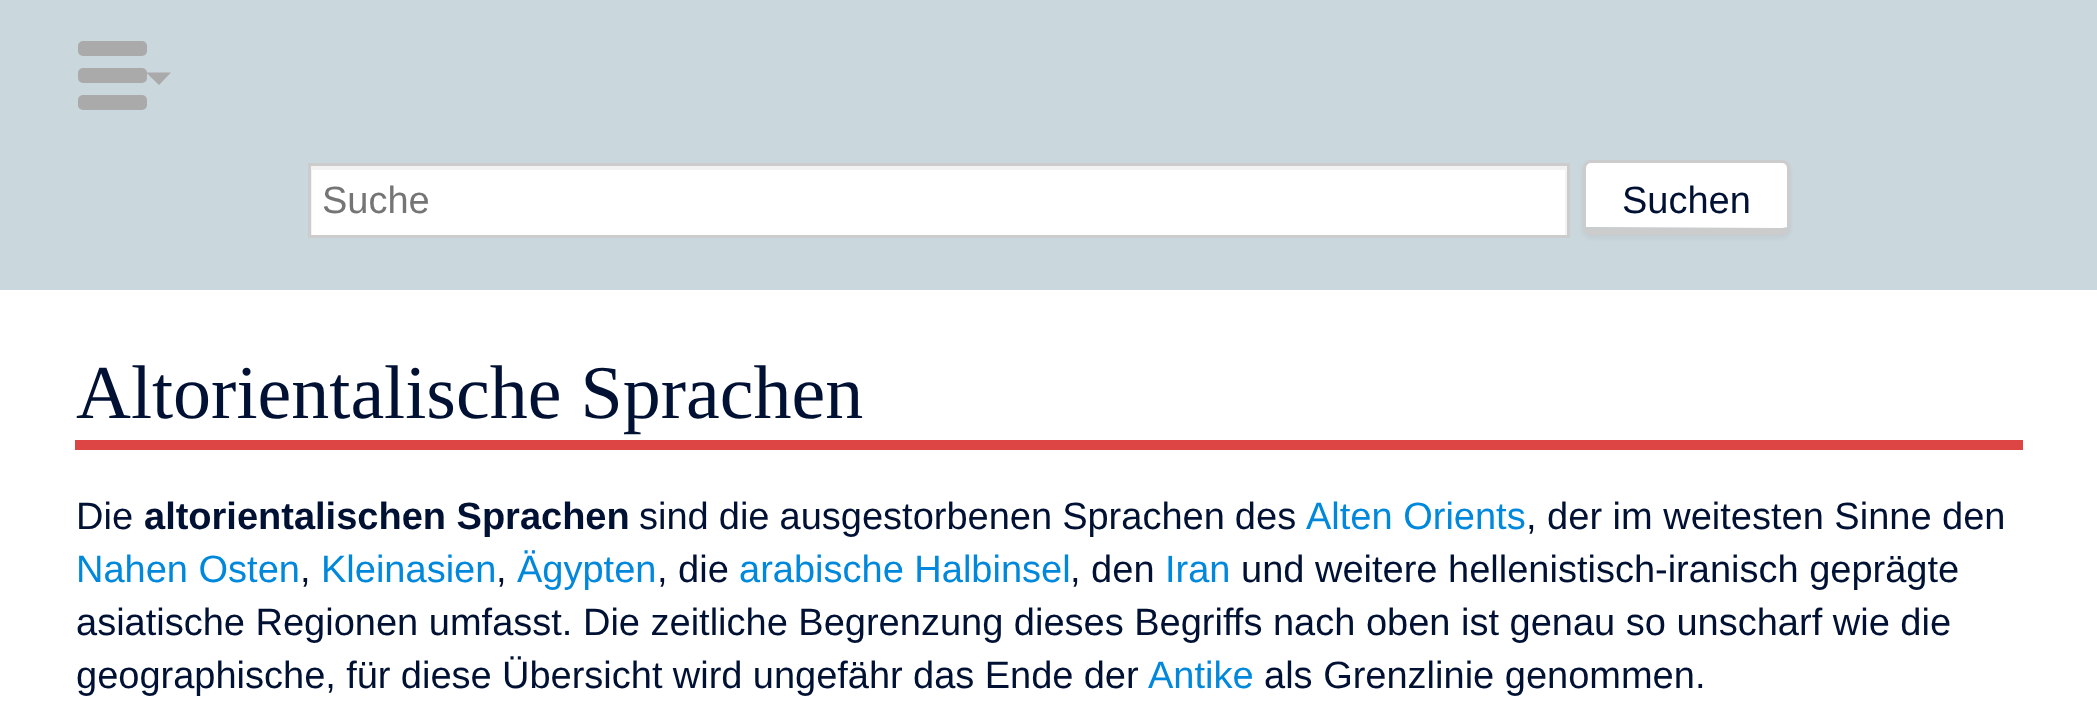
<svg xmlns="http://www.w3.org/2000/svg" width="2097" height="723">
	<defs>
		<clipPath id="clip1"><rect x="310" y="165" width="1258" height="70" /></clipPath>
	</defs>
	<rect width="100%" height="100%" fill="#CAD7DD" />
	<rect x="312" y="170" width="1253" height="65" fill="#FFFFFF" />
	<g clip-path="url(#clip1)">
		<path d="M62-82H1815V482H62ZM312 170H1565V235H312Z" fill="#F2F2F2" fill-rule="evenodd" />
	</g>
	<rect x="309.5" y="164.5" width="1259" height="72" fill="none" stroke="#CCCCCC" stroke-width="3" />
	<text x="322" y="213" font-family="Liberation Sans" font-size="38" fill="#757575">Suche</text>
	<rect x="1583" y="163" width="207" height="75" rx="8" fill="#000000" fill-opacity="0.05" filter="blur(2.5px)" />
	<path d="M1590 162H1782C1785 162 1788 165 1788 168V227L1782 228L1585 227V168C1585 165 1587 162 1590 162Z" fill="#FFFFFF" />
	<rect x="1584.5" y="161.5" width="204" height="72" rx="6.5" fill="none" stroke="#CCCCCC" stroke-width="3" />
	<rect x="1588" y="228" width="197" height="4" fill="#CCCCCC" />
	<text x="1622" y="213" font-family="Liberation Sans" font-size="38" fill="#001133">Suchen</text>
	<rect x="0" y="290" width="2097" height="433" fill="#FFFFFF" />
	<rect x="78" y="95" width="69" height="15" rx="5" fill="#AAAAAA" />
	<rect x="78" y="68" width="69" height="15" rx="5" fill="#AAAAAA" />
	<rect x="78" y="41" width="69" height="15" rx="5" fill="#AAAAAA" />
	<path d="M171 72.5L159 85L146 72.5Z" fill="#AAAAAA" />
	<rect x="75" y="440" width="1948" height="10" fill="#DD4444" />
	<text x="76" y="418" font-family="Liberation Serif" font-size="76" fill="#001133">Altorientalische Sprachen</text>
	<text x="76" y="529" font-family="Liberation Sans" font-size="38" fill="#001133">Die</text>
	<text x="144" y="529" font-family="Liberation Sans" font-size="38" font-weight="700" fill="#001133">altorientalischen Sprachen</text>
	<text x="639" y="529" word-spacing="-0.5" font-family="Liberation Sans" font-size="38" fill="#001133">sind die ausgestorbenen Sprachen des</text>
	<text x="1306" y="529" font-family="Liberation Sans" font-size="38" fill="#0088DD">Alten Orients</text>
	<text x="1526" y="529" font-family="Liberation Sans" font-size="38" fill="#001133">, der im weitesten Sinne den</text>
	<text x="76" y="582" font-family="Liberation Sans" font-size="38" fill="#0088DD">Nahen Osten</text>
	<text x="300" y="582" font-family="Liberation Sans" font-size="38" fill="#001133">,</text>
	<text x="321" y="582" font-family="Liberation Sans" font-size="38" fill="#0088DD">Kleinasien</text>
	<text x="496" y="582" font-family="Liberation Sans" font-size="38" fill="#001133">,</text>
	<text x="517" y="582" font-family="Liberation Sans" font-size="38" fill="#0088DD">Ägypten</text>
	<text x="657" y="582" font-family="Liberation Sans" font-size="38" fill="#001133">, die</text>
	<text x="739" y="582" font-family="Liberation Sans" font-size="38" fill="#0088DD">arabische Halbinsel</text>
	<text x="1070" y="582" font-family="Liberation Sans" font-size="38" fill="#001133">, den</text>
	<text x="1165" y="582" font-family="Liberation Sans" font-size="38" fill="#0088DD">Iran</text>
	<g font-family="Liberation Sans" font-size="38" fill="#001133">
		<text x="1241" y="582">und weitere hellenistisch-iranisch geprägte</text>
		<text x="76" y="635">asiatische Regionen umfasst. Die zeitliche Begrenzung dieses Begriffs nach oben ist genau so unscharf wie die</text>
		<text x="76" y="688" word-spacing="-0.25">geographische, für diese Übersicht wird ungefähr das Ende der</text>
	</g>
	<text x="1148" y="688" font-family="Liberation Sans" font-size="38" fill="#0088DD">Antike</text>
	<text x="1264" y="688" font-family="Liberation Sans" font-size="38" fill="#001133">als Grenzlinie genommen.</text>
</svg>
